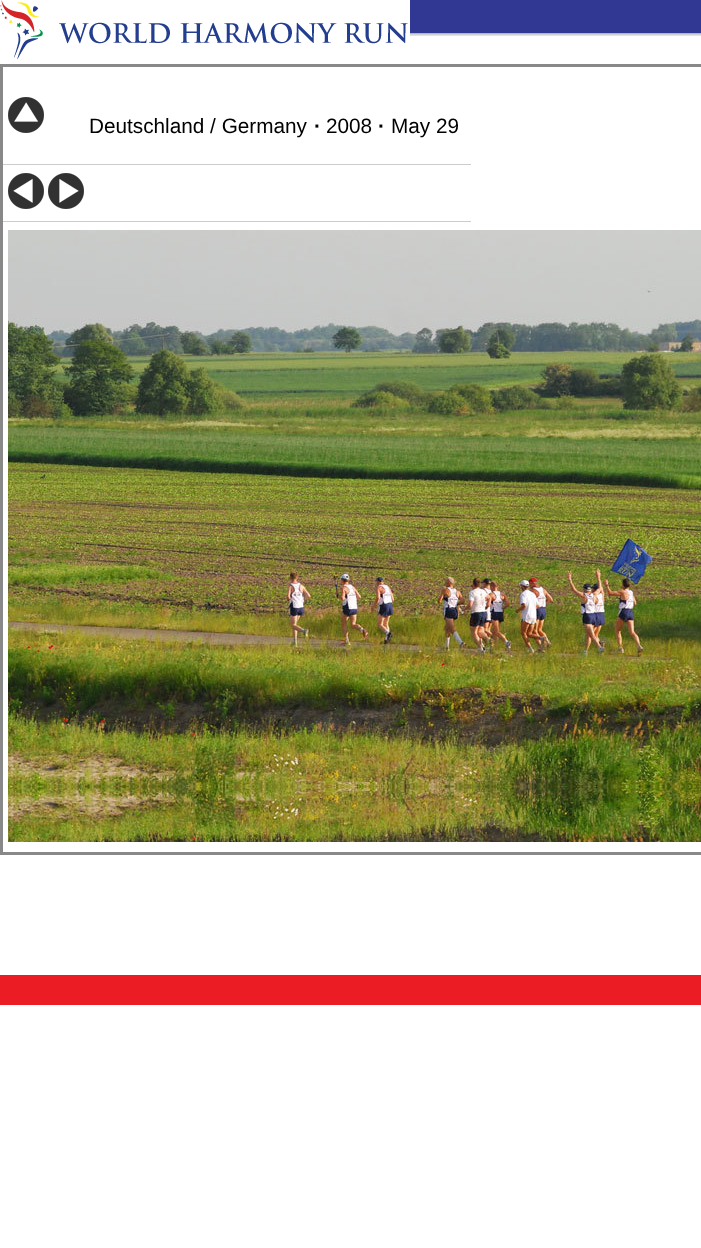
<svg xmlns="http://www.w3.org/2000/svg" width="701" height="1248">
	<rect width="100%" height="100%" fill="#FFFFFF" />
	<image x="410" y="0" width="291" height="36" href="assets/img1.png" />
	<image x="0" y="0" width="410" height="60" href="assets/img2.png" />
	<rect x="1.5" y="65.5" width="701" height="788" fill="none" stroke="#888888" stroke-width="3" />
	<image x="8" y="97" width="36" height="36" href="assets/img3.png" />
	<text x="89" y="133" font-family="Liberation Sans" font-size="20.75" fill="#000000">Deutschland / Germany</text>
	<text x="314" y="133" font-family="Liberation Sans" font-size="20.75" font-weight="700" fill="#000000">·</text>
	<text x="326" y="133" font-family="Liberation Sans" font-size="20.75" fill="#000000">2008</text>
	<text x="378" y="133" font-family="Liberation Sans" font-size="20.75" font-weight="700" fill="#000000">·</text>
	<text x="391" y="133" font-family="Liberation Sans" font-size="20.75" fill="#000000">May 29</text>
	<rect x="3" y="164" width="468" height="1" fill="#CCCCCC" />
	<image x="8" y="173" width="36" height="36" href="assets/img4.png" />
	<image x="48" y="173" width="36" height="36" href="assets/img5.png" />
	<rect x="3" y="221" width="468" height="1" fill="#CCCCCC" />
	<image x="8" y="230" width="693" height="557" href="assets/img6.png" />
	<image x="8" y="787" width="693" height="55" href="assets/img7.png" />
	<rect x="0" y="975" width="701" height="30" fill="#EB1C24" />
</svg>
